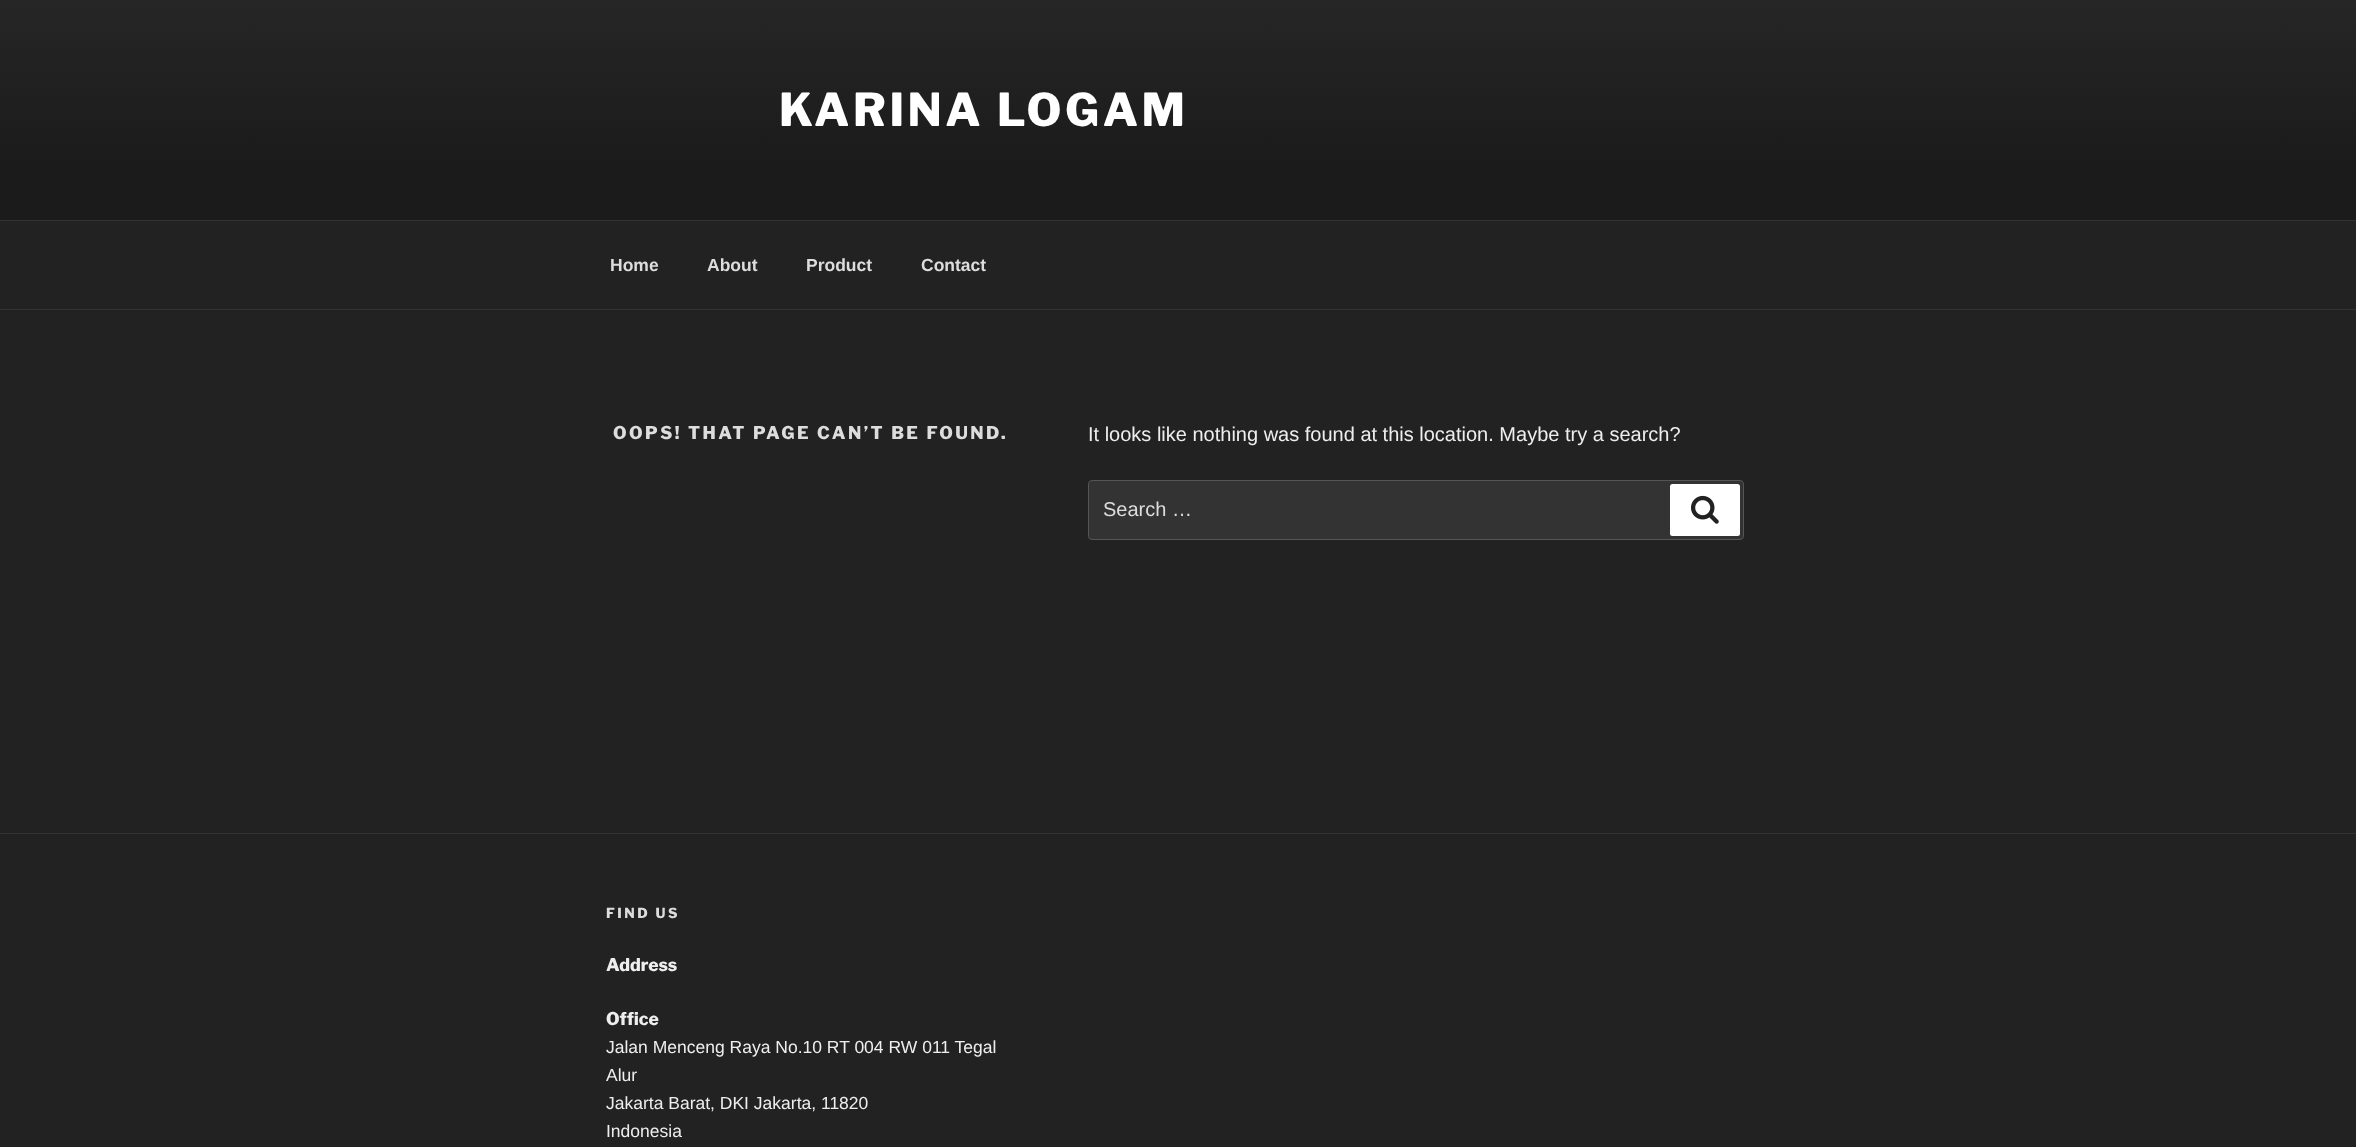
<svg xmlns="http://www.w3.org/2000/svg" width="2356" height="1147">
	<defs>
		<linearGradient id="g1" gradientUnits="userSpaceOnUse" x1="1178" y1="0" x2="1178" y2="220"><stop offset="0" stop-color="#262626" /><stop offset="0.75" stop-color="#1B1B1B" /><stop offset="1" stop-color="#1B1B1B" /></linearGradient>
	</defs>
	<rect width="100%" height="100%" fill="#222222" />
	<rect x="0" y="0" width="2356" height="220" fill="url(#g1)" />
	<text x="779" y="126" font-family="Libre Franklin" font-size="45" font-weight="100" letter-spacing="3.6" fill="#FFFFFF">KARINA LOGAM</text>
	<rect x="0" y="220" width="2356" height="1" fill="#333333" />
	<rect x="0" y="309" width="2356" height="1" fill="#333333" />
	<g font-family="Liberation Sans" font-size="17.5" font-weight="700" fill="#DDDDDD">
		<text x="610" y="271">Home</text>
		<text x="707" y="271">About</text>
		<text x="806" y="271">Product</text>
		<text x="921" y="271">Contact</text>
	</g>
	<text x="613" y="439" font-family="Libre Franklin" font-size="17.5" font-weight="100" letter-spacing="2.45" fill="#DDDDDD">OOPS! THAT PAGE CAN’T BE FOUND.</text>
	<text x="1088" y="441" font-family="Liberation Sans" font-size="20" fill="#EEEEEE">It looks like nothing was found at this location. Maybe try a search?</text>
	<rect x="1088.5" y="480.5" width="655" height="59" rx="3.5" fill="#333333" stroke="#555555" />
	<text x="1103" y="516" font-family="Liberation Sans" font-size="20" fill="#DDDDDD">Search …</text>
	<rect x="1670" y="484" width="70" height="52" rx="2.5" fill="#FFFFFF" />
	<image x="1690" y="495" width="29" height="29" href="assets/img1.png" />
	<rect x="0" y="833" width="2356" height="1" fill="#333333" />
	<text x="606" y="918" font-family="Libre Franklin" font-size="13.75" font-weight="100" letter-spacing="2.5" fill="#DDDDDD">FIND US</text>
	<g font-family="Libre Franklin" font-size="17.5" font-weight="100" fill="#EEEEEE">
		<text x="606" y="971">Address</text>
		<text x="606" y="1025">Office</text>
	</g>
	<g font-family="Liberation Sans" font-size="17.5" fill="#EEEEEE">
		<text x="606" y="1053">Jalan Menceng Raya No.10 RT 004 RW 011 Tegal</text>
		<text x="606" y="1081">Alur</text>
		<text x="606" y="1109">Jakarta Barat, DKI Jakarta, 11820</text>
		<text x="606" y="1137">Indonesia</text>
	</g>
</svg>
